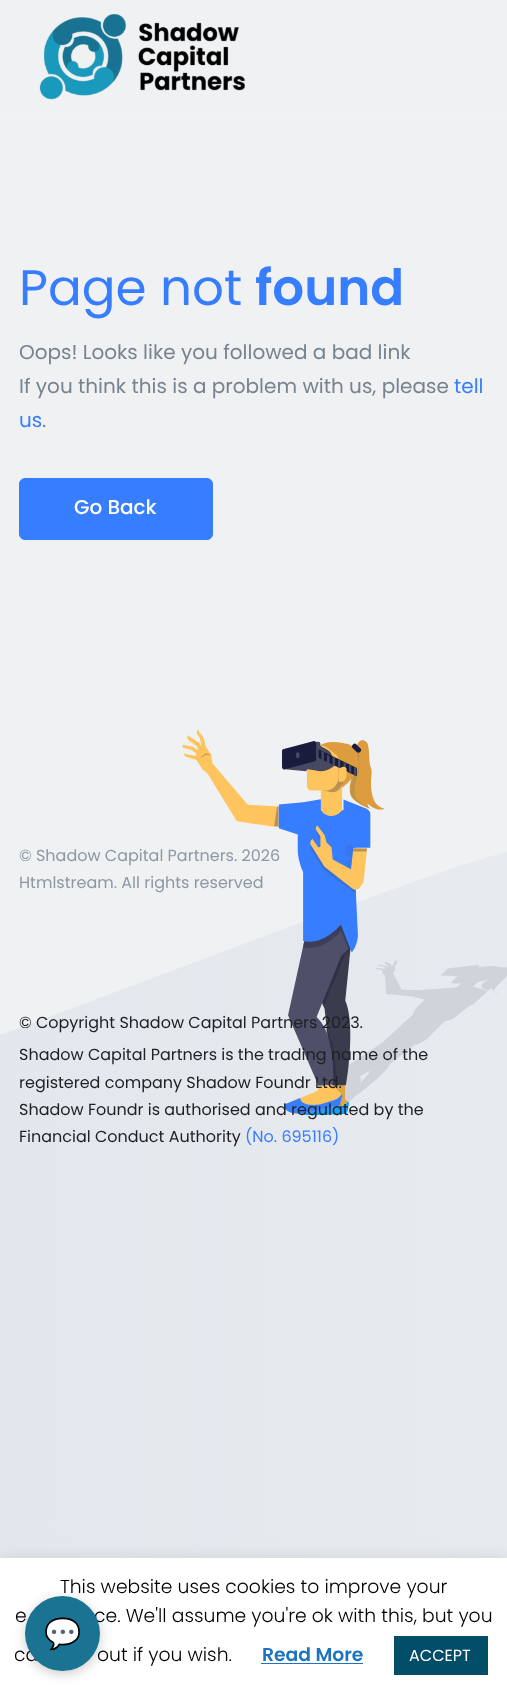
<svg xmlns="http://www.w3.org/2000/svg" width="507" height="1696">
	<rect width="100%" height="100%" fill="#FFFFFF" />
	<image x="0" y="0" width="507" height="1558" href="assets/img1.png" />
	<rect x="0" y="115" width="507" height="1" fill="#F3F4F5" />
	<image x="39" y="13" width="207" height="87" href="assets/img2.png" />
	<text x="19" y="305" font-family="Poppins" font-size="50" fill="#377DFF">Page not</text>
	<text x="255" y="305" font-family="Poppins" font-size="50" font-weight="600" fill="#377DFF">found</text>
	<g font-family="Poppins" font-size="20" fill="#77838F">
		<text x="19" y="359">Oops! Looks like you followed a bad link</text>
		<text x="19" y="393">If you think this is a problem with us, please</text>
	</g>
	<g font-family="Poppins" font-size="20" fill="#377DFF">
		<text x="454" y="393">tell</text>
		<text x="19" y="427">us</text>
	</g>
	<text x="42" y="427" font-family="Poppins" font-size="20" fill="#77838F">.</text>
	<rect x="19.5" y="478.5" width="193" height="61" rx="5.5" fill="#377DFF" stroke="#377DFF" />
	<text x="74" y="514" font-family="Poppins" font-size="20" font-weight="500" fill="#FFFFFF">Go Back</text>
	<g font-family="Poppins" font-size="16" fill="#8C98A4">
		<text x="19" y="861">© Shadow Capital Partners. 2026</text>
		<text x="19" y="888">Htmlstream. All rights reserved</text>
	</g>
	<g font-family="Poppins" font-size="16" fill="#1E2022">
		<text x="19" y="1028">© Copyright Shadow Capital Partners 2023.</text>
		<text x="19" y="1060">Shadow Capital Partners is the trading name of the</text>
		<text x="19" y="1088">registered company Shadow Foundr Ltd.</text>
		<text x="19" y="1115">Shadow Foundr is authorised and regulated by the</text>
		<text x="19" y="1142">Financial Conduct Authority</text>
	</g>
	<text x="245" y="1142" font-family="Poppins" font-size="16" fill="#377DFF">(No. 695116)</text>
	<rect x="0" y="1556" width="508" height="139" fill="#ACABAB" fill-opacity="0.3" filter="blur(6px)" />
	<rect x="0" y="1558" width="507" height="138" fill="#FFFFFF" />
	<g font-family="Poppins" font-size="18.75" font-weight="300" fill="#000000">
		<text x="60" y="1593">This website uses cookies to improve your</text>
		<text x="15" y="1622">e</text>
		<text x="94" y="1622">ce. We'll assume you're ok with this, but you</text>
		<text x="14" y="1661">ca</text>
		<text x="97" y="1661">out if you wish.</text>
	</g>
	<text x="262" y="1661" font-family="Poppins" font-size="18.75" font-weight="600" fill="#1E73BE">Read More</text>
	<rect x="261" y="1663" width="102" height="1" fill="#1E73BE" />
	<rect x="394" y="1636" width="94" height="39" fill="#024D67" />
	<text x="409" y="1661" font-family="Poppins" font-size="16" fill="#FFFFFF">ACCEPT</text>
	<rect x="25" y="1599" width="75" height="75" rx="37.5" fill="#000000" fill-opacity="0.2" filter="blur(6px)" />
	<circle cx="62.5" cy="1633.5" r="37.5" fill="#1A7393" />
	<text x="44" y="1644" font-family="Noto Color Emoji" font-size="30" fill="#FFFFFF">💬</text>
</svg>
